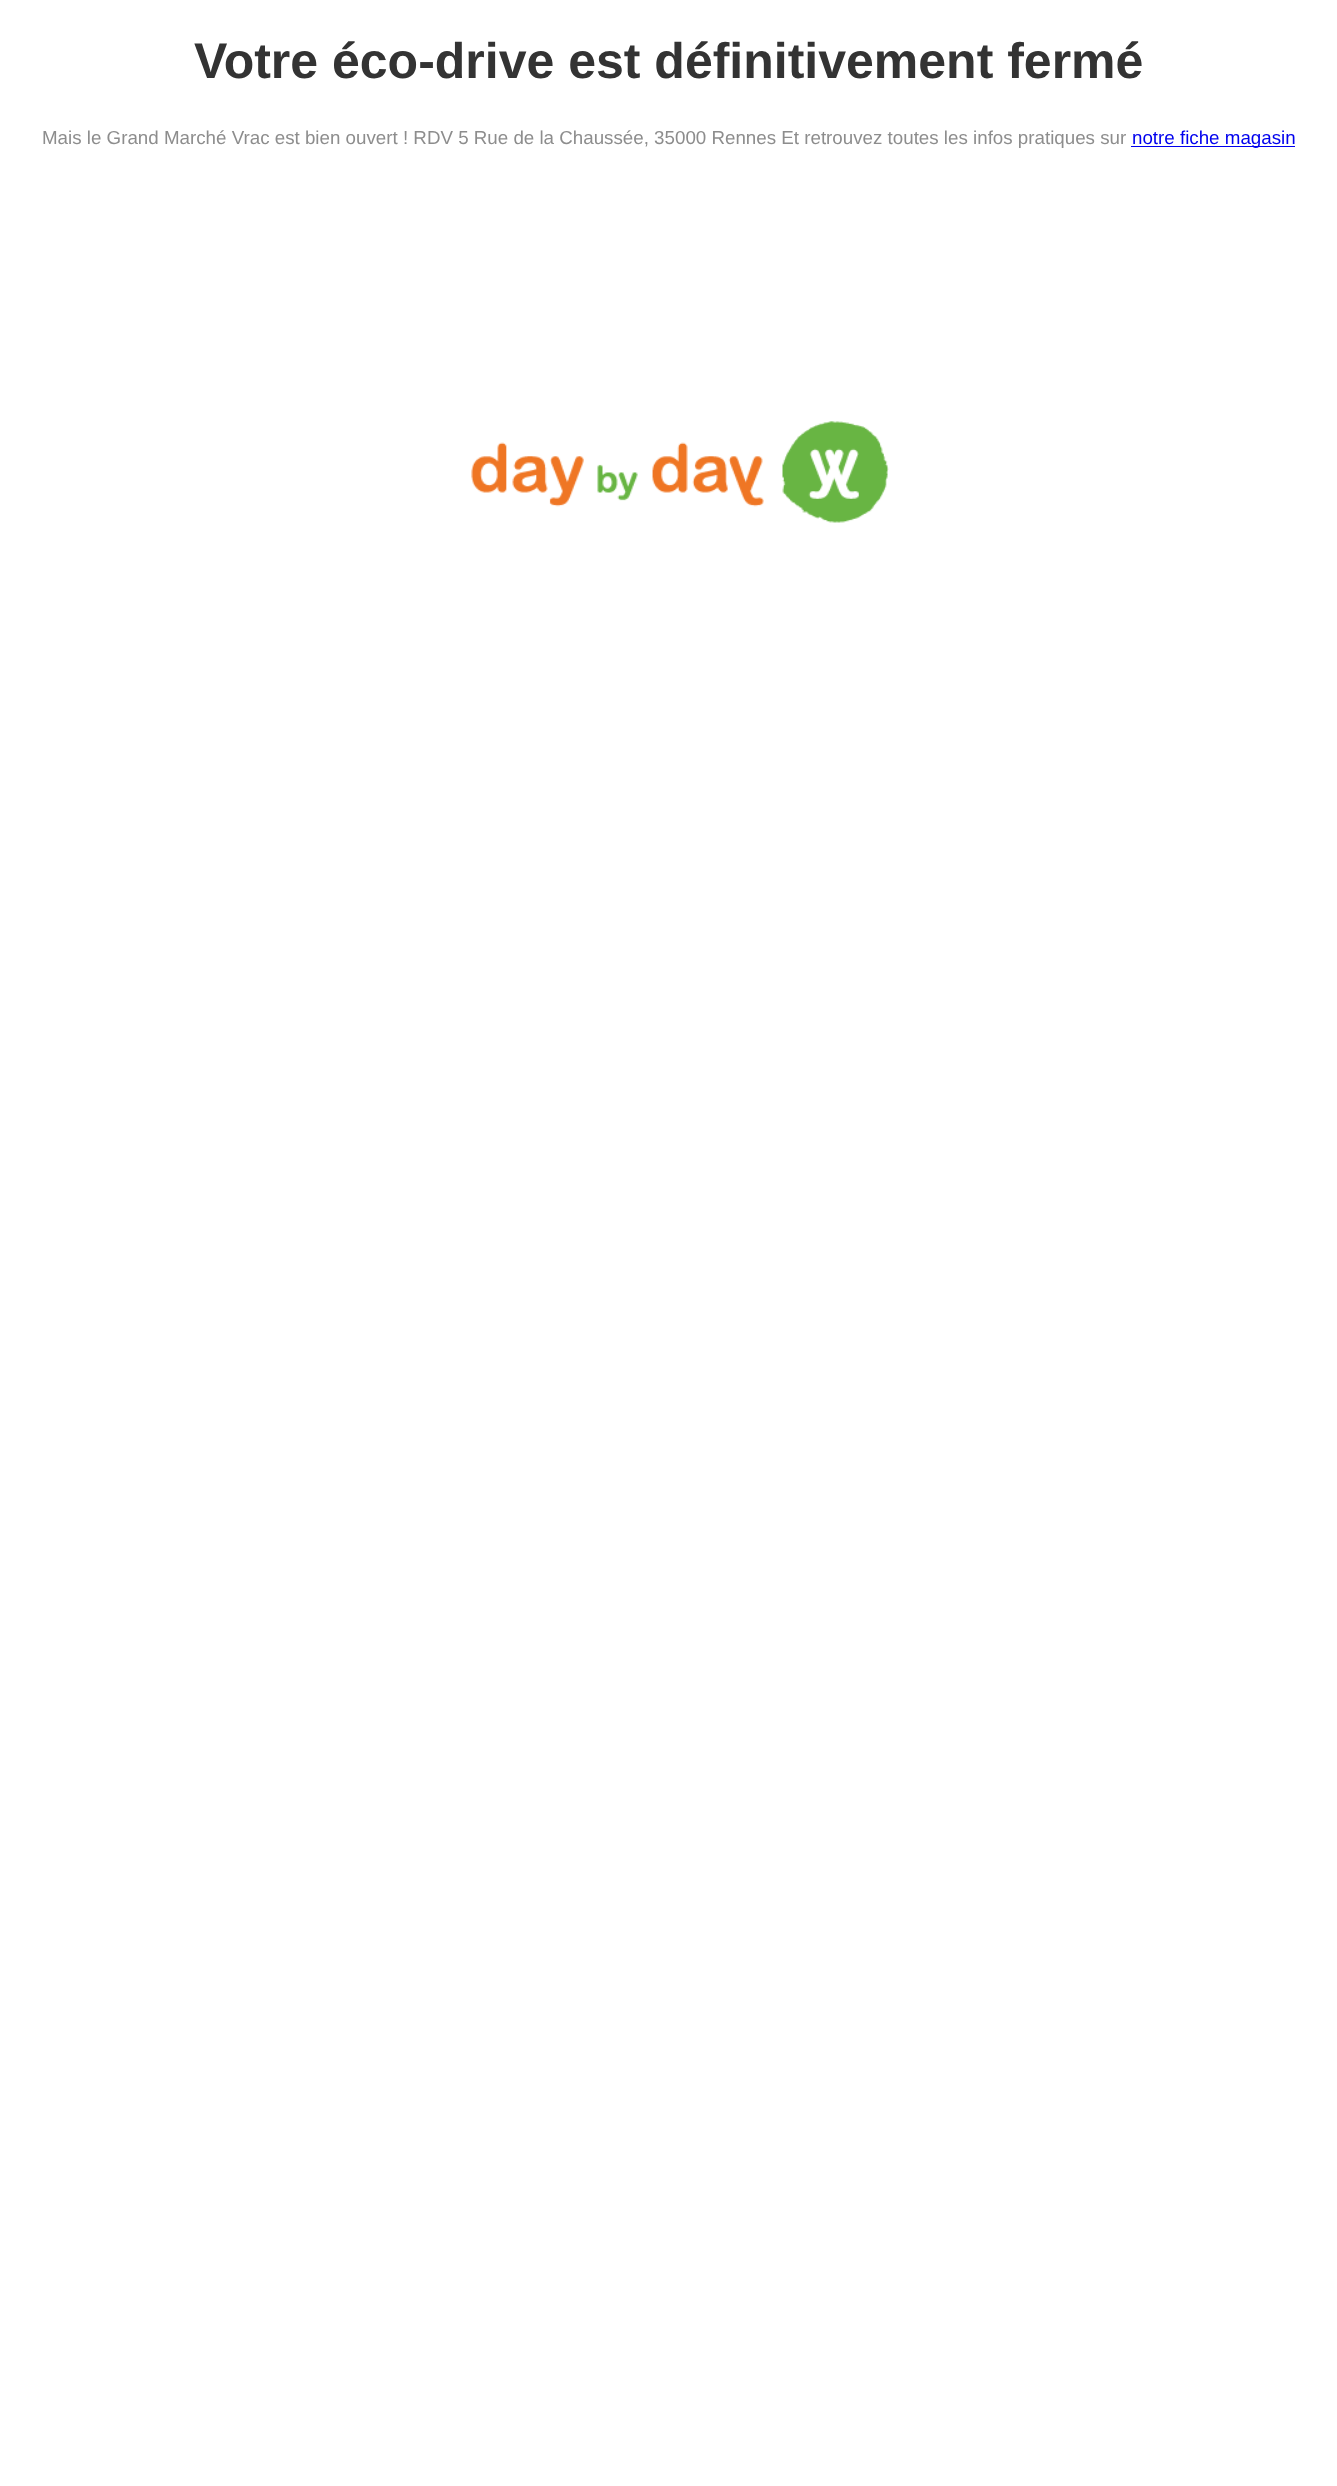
<svg xmlns="http://www.w3.org/2000/svg" width="1337" height="2486">
	<rect width="100%" height="100%" fill="#FFFFFF" />
	<text x="194" y="78" font-family="Liberation Sans" font-size="50" font-weight="700" fill="#333333">Votre éco-drive est définitivement fermé</text>
	<text x="42" y="144" font-family="Liberation Sans" font-size="18.75" fill="#8D8D8D">Mais le Grand Marché Vrac est bien ouvert ! RDV 5 Rue de la Chaussée, 35000 Rennes Et retrouvez toutes les infos pratiques sur</text>
	<rect x="1131" y="146" width="164" height="1" fill="#0000EE" />
	<text x="1132" y="144" font-family="Liberation Sans" font-size="18.75" fill="#0000EE">notre fiche magasin</text>
	<image x="471" y="421" width="418" height="102" href="assets/img1.png" />
</svg>
